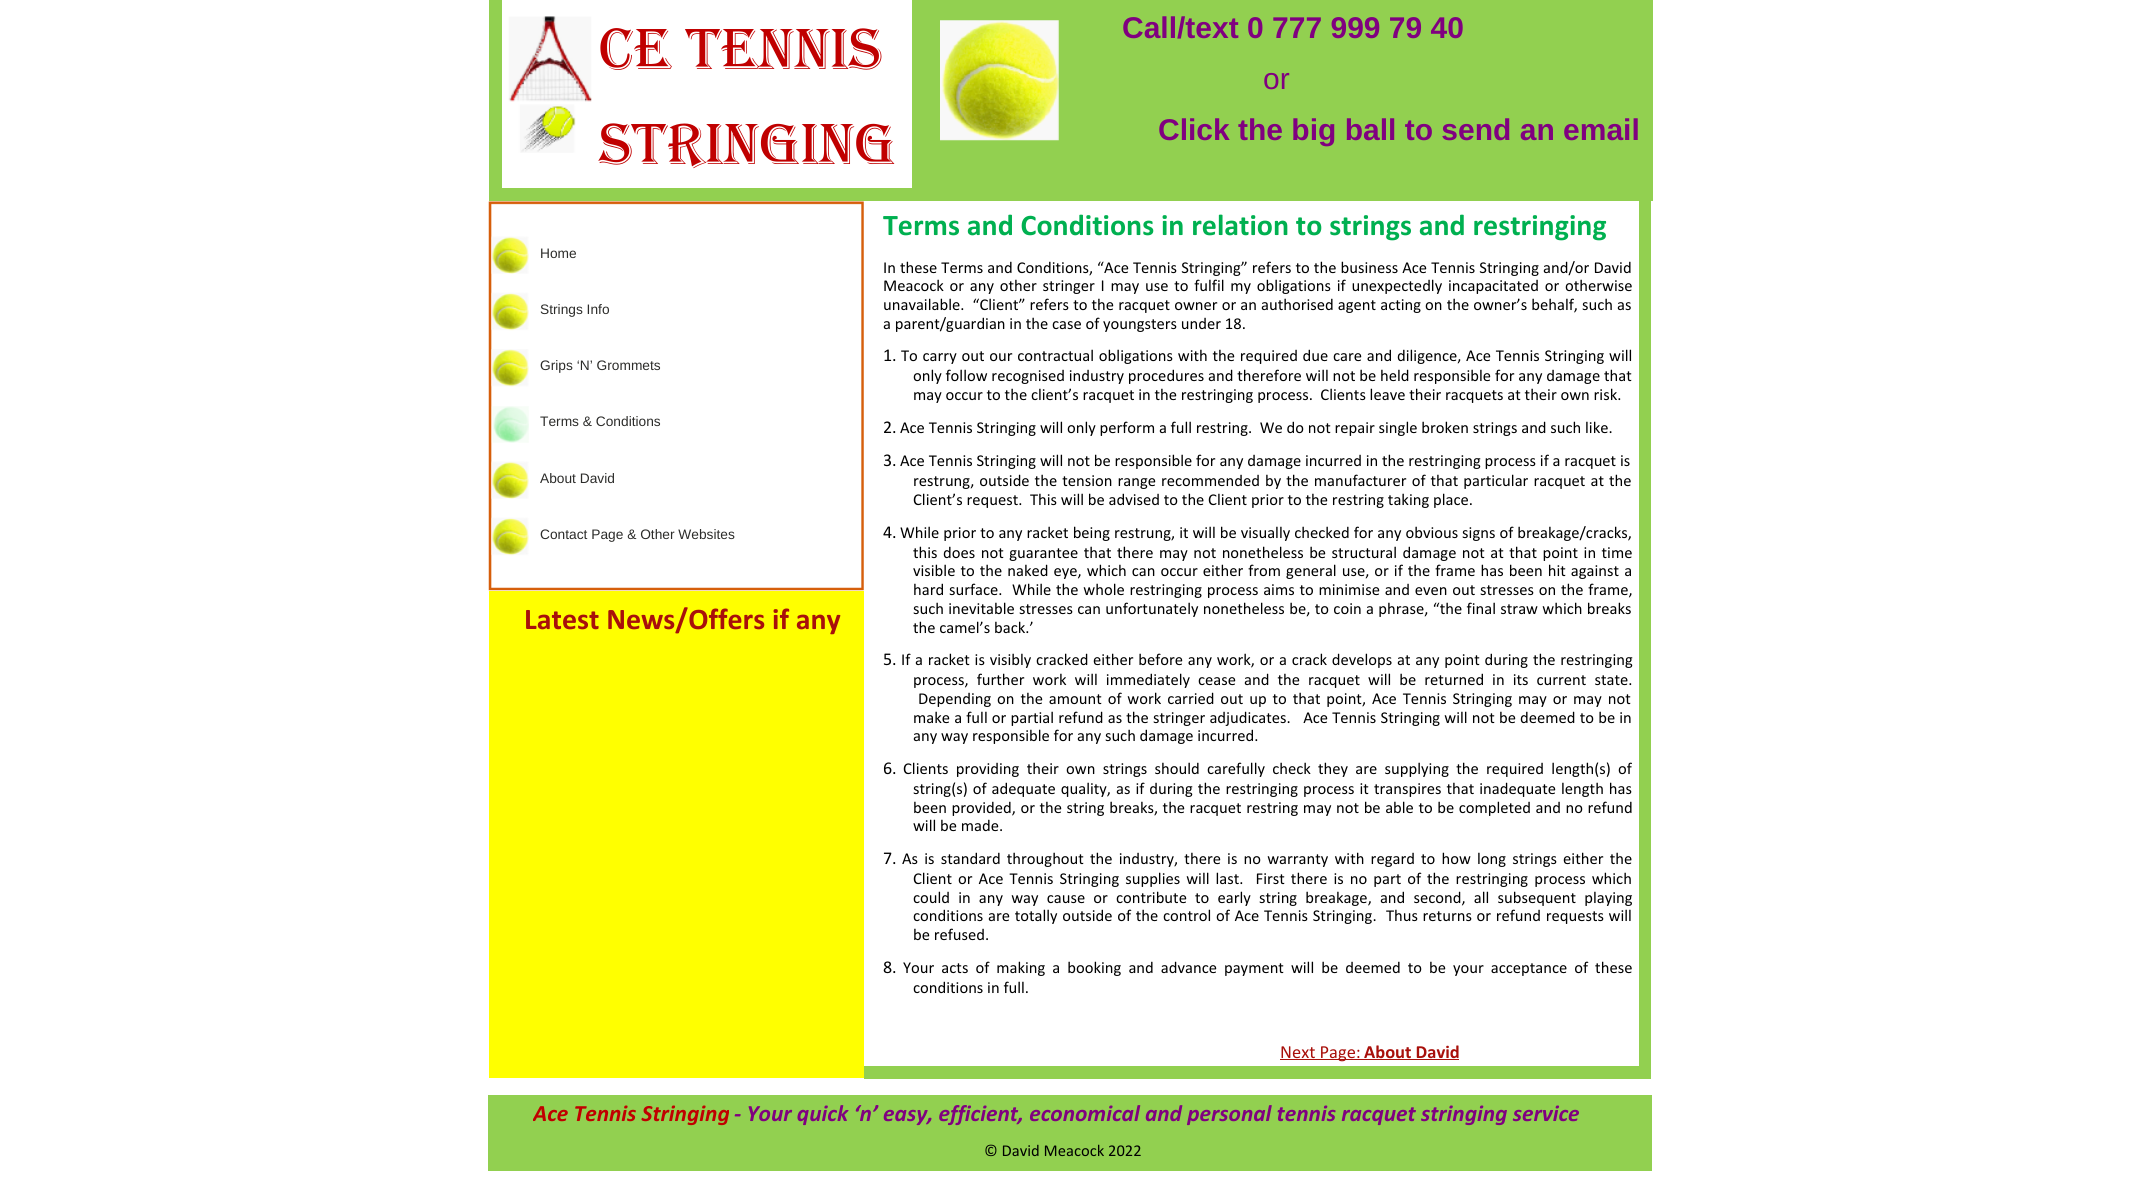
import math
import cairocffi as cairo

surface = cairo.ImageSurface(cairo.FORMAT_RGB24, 2140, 1181)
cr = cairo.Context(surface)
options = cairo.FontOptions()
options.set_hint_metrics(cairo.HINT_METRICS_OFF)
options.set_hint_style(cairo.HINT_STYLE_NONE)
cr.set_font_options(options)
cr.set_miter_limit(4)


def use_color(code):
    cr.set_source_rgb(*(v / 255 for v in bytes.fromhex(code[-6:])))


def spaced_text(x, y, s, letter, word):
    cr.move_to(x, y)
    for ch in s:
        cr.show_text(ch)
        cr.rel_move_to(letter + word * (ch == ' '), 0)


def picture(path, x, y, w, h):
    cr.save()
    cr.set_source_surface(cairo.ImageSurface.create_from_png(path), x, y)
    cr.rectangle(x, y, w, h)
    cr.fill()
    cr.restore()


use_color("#ffffff")
cr.paint()
cr.rectangle(495.5, -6.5, 423, 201)
use_color("#92d050")
cr.set_line_width(13)
cr.stroke()
picture("img1.png", 508, 16, 84, 137)
cr.select_font_face("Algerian")
cr.set_font_size(60)
use_color("#c00000")
cr.move_to(599, 69)
cr.show_text("ce Tennis")
cr.move_to(599, 164)
cr.show_text("Stringing")
use_color("#92d050")
cr.rectangle(925, 0, 728, 201)
cr.fill()
picture("img2.png", 940, 20, 119, 121)
cr.select_font_face("Liberation Sans", cairo.FONT_SLANT_NORMAL, cairo.FONT_WEIGHT_BOLD)
cr.set_font_size(30)
use_color("#800080")
cr.move_to(1122, 38)
cr.show_text("Call/text 0 777 999 79 40")
cr.select_font_face("Liberation Sans")
cr.move_to(1263, 89)
cr.show_text("or")
cr.select_font_face("Liberation Sans", cairo.FONT_SLANT_NORMAL, cairo.FONT_WEIGHT_BOLD)
cr.move_to(1158, 140)
cr.show_text("Click the big ball to send an email")
use_color("#92d050")
cr.rectangle(1639, 201, 12, 865)
cr.fill()
cr.rectangle(864, 1066, 787, 13)
cr.fill()
picture("img3.png", 488, 201, 376, 390)
picture("img4.png", 491, 236, 38, 38)
cr.select_font_face("Liberation Sans")
cr.set_font_size(13.75)
use_color("#2c2c2a")
cr.move_to(540, 258)
cr.show_text("Home")
picture("img5.png", 491, 292, 38, 39)
cr.move_to(540, 314)
cr.show_text("Strings Info")
picture("img6.png", 491, 349, 38, 38)
cr.move_to(540, 370)
cr.show_text("Grips ‘N’ Grommets")
picture("img7.png", 491, 406, 38, 37)
cr.move_to(540, 426)
cr.show_text("Terms & Conditions")
picture("img4.png", 491, 461, 38, 38)
cr.move_to(540, 483)
cr.show_text("About David")
picture("img8.png", 491, 517, 38, 39)
cr.move_to(540, 539)
cr.show_text("Contact Page & Other Websites")
cr.save()
cr.rectangle(883, 210, 750, 830)
cr.clip()
cr.select_font_face("Calibri", cairo.FONT_SLANT_NORMAL, cairo.FONT_WEIGHT_BOLD)
cr.set_font_size(30)
use_color("#00b050")
cr.move_to(883, 235)
cr.show_text("Terms and Conditions in relation to strings and restringing")
cr.restore()
cr.select_font_face("Calibri")
cr.set_font_size(16.6)
use_color("#000000")
spaced_text(883, 273, "In these Terms and Conditions, “Ace Tennis Stringing” refers to the business Ace Tennis Stringing and/or David", 0, 0.3)
spaced_text(883, 291, "Meacock or any other stringer I may use to fulfil my obligations if unexpectedly incapacitated or otherwise", 0, 2)
spaced_text(883, 310, "unavailable.  “Client” refers to the racquet owner or an authorised agent acting on the owner’s behalf, such as", 0, 0.3)
cr.move_to(883, 329)
cr.show_text("a parent/guardian in the case of youngsters under 18.")
cr.set_font_size(18)
cr.move_to(883, 361)
cr.show_text("1.")
cr.set_font_size(16.6)
spaced_text(901, 361, "To carry out our contractual obligations with the required due care and diligence, Ace Tennis Stringing will", 0, 1)
cr.move_to(913, 381)
cr.show_text("only follow recognised industry procedures and therefore will not be held responsible for any damage that")
cr.move_to(913, 400)
cr.show_text("may occur to the client’s racquet in the restringing process.  Clients leave their racquets at their own risk.")
cr.set_font_size(18)
cr.move_to(883, 433)
cr.show_text("2.")
cr.set_font_size(16.6)
cr.move_to(900, 433)
cr.show_text("Ace Tennis Stringing will only perform a full restring.  We do not repair single broken strings and such like.")
cr.set_font_size(18)
cr.move_to(883, 466)
cr.show_text("3.")
cr.set_font_size(16.6)
cr.move_to(900, 466)
cr.show_text("Ace Tennis Stringing will not be responsible for any damage incurred in the restringing process if a racquet is")
spaced_text(913, 486, "restrung, outside the tension range recommended by the manufacturer of that particular racquet at the", 0, 1.25)
cr.move_to(913, 505)
cr.show_text("Client’s request.  This will be advised to the Client prior to the restring taking place.")
cr.set_font_size(18)
cr.move_to(883, 538)
cr.show_text("4.")
cr.set_font_size(16.6)
spaced_text(900, 538, "While prior to any racket being restrung, it will be visually checked for any obvious signs of breakage/cracks,", 0, 0.2)
spaced_text(913, 558, "this does not guarantee that there may not nonetheless be structural damage not at that point in time", 0, 1.7)
spaced_text(913, 576, "visible to the naked eye, which can occur either from general use, or if the frame has been hit against a", 0, 1.25)
spaced_text(913, 595, "hard surface.  While the whole restringing process aims to minimise and even out stresses on the frame,", 0, 1)
spaced_text(913, 614, "such inevitable stresses can unfortunately nonetheless be, to coin a phrase, “the final straw which breaks", 0, 0.6)
cr.move_to(913, 633)
cr.show_text("the camel’s back.’")
cr.set_font_size(18)
cr.move_to(883, 665)
cr.show_text("5.")
cr.set_font_size(16.6)
spaced_text(901, 665, "If a racket is visibly cracked either before any work, or a crack develops at any point during the restringing", 0, 1)
spaced_text(913, 685, "process, further work will immediately cease and the racquet will be returned in its current state.", 0, 4.25)
spaced_text(918, 704, "Depending on the amount of work carried out up to that point, Ace Tennis Stringing may or may not", 0, 2.1)
spaced_text(913, 723, "make a full or partial refund as the stringer adjudicates.   Ace Tennis Stringing will not be deemed to be in", 0, 0.4)
cr.move_to(913, 741)
cr.show_text("any way responsible for any such damage incurred.")
cr.set_font_size(18)
cr.move_to(883, 774)
cr.show_text("6.")
cr.set_font_size(16.6)
spaced_text(903, 774, "Clients providing their own strings should carefully check they are supplying the required length(s) of", 0, 3.5)
spaced_text(913, 794, "string(s) of adequate quality, as if during the restringing process it transpires that inadequate length has", 0, 1.25)
spaced_text(913, 813, "been provided, or the string breaks, the racquet restring may not be able to be completed and no refund", 0, 0.75)
cr.move_to(913, 831)
cr.show_text("will be made.")
cr.set_font_size(18)
cr.move_to(883, 864)
cr.show_text("7.")
cr.set_font_size(16.6)
spaced_text(902, 864, "As is standard throughout the industry, there is no warranty with regard to how long strings either the", 0, 2.4)
spaced_text(913, 884, "Client or Ace Tennis Stringing supplies will last.  First there is no part of the restringing process which", 0, 2.25)
spaced_text(913, 903, "could in any way cause or contribute to early string breakage, and second, all subsequent playing", 0, 4.4)
spaced_text(913, 921, "conditions are totally outside of the control of Ace Tennis Stringing.  Thus returns or refund requests will", 0, 0.9)
cr.move_to(913, 940)
cr.show_text("be refused.")
cr.set_font_size(18)
cr.move_to(883, 973)
cr.show_text("8.")
cr.set_font_size(16.6)
spaced_text(903, 973, "Your acts of making a booking and advance payment will be deemed to be your acceptance of these", 0, 3.25)
cr.move_to(913, 993)
cr.show_text("conditions in full.")
use_color("#ffff00")
cr.rectangle(489, 591, 375, 487)
cr.fill()
cr.select_font_face("Calibri", cairo.FONT_SLANT_NORMAL, cairo.FONT_WEIGHT_BOLD)
cr.set_font_size(30)
use_color("#a8100b")
cr.move_to(524, 629)
cr.show_text("Latest News/Offers if any")
cr.rectangle(1280, 1059, 179, 1)
cr.fill()
cr.select_font_face("Calibri")
cr.set_font_size(18.5)
cr.move_to(1280, 1058)
cr.show_text("Next Page:")
cr.select_font_face("Calibri", cairo.FONT_SLANT_NORMAL, cairo.FONT_WEIGHT_BOLD)
cr.move_to(1364, 1058)
cr.show_text("About David")
use_color("#92d050")
cr.rectangle(488, 1095, 1164, 76)
cr.fill()
cr.save()
cr.rectangle(533, 1101, 1073, 32)
cr.clip()
cr.select_font_face("Calibri", cairo.FONT_SLANT_ITALIC, cairo.FONT_WEIGHT_BOLD)
cr.set_font_size(23.4)
use_color("#c00000")
cr.move_to(533, 1121)
cr.show_text("Ace Tennis Stringing")
cr.restore()
cr.select_font_face("Calibri", cairo.FONT_SLANT_ITALIC, cairo.FONT_WEIGHT_BOLD)
cr.set_font_size(23.4)
use_color("#800080")
cr.move_to(734, 1121)
cr.show_text("- Your quick ‘n’ easy, efficient, economical and personal tennis racquet stringing service")
cr.select_font_face("Calibri")
cr.set_font_size(16.6)
use_color("#000000")
cr.move_to(984, 1156)
cr.show_text("© David Meacock 2022")
surface.write_to_png("result.png")
